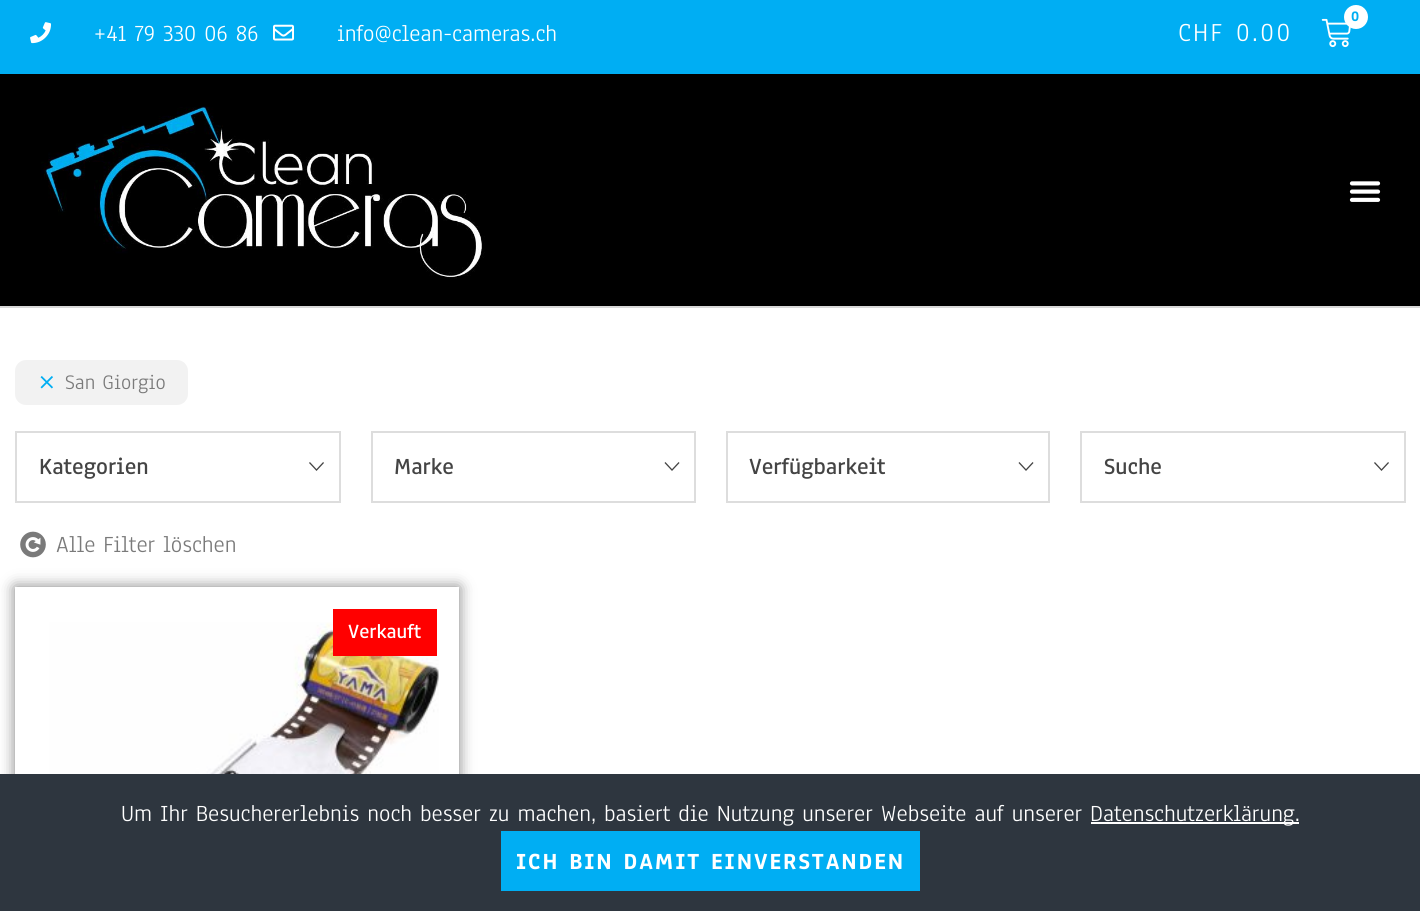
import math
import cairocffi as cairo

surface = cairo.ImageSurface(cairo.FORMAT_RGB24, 1420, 911)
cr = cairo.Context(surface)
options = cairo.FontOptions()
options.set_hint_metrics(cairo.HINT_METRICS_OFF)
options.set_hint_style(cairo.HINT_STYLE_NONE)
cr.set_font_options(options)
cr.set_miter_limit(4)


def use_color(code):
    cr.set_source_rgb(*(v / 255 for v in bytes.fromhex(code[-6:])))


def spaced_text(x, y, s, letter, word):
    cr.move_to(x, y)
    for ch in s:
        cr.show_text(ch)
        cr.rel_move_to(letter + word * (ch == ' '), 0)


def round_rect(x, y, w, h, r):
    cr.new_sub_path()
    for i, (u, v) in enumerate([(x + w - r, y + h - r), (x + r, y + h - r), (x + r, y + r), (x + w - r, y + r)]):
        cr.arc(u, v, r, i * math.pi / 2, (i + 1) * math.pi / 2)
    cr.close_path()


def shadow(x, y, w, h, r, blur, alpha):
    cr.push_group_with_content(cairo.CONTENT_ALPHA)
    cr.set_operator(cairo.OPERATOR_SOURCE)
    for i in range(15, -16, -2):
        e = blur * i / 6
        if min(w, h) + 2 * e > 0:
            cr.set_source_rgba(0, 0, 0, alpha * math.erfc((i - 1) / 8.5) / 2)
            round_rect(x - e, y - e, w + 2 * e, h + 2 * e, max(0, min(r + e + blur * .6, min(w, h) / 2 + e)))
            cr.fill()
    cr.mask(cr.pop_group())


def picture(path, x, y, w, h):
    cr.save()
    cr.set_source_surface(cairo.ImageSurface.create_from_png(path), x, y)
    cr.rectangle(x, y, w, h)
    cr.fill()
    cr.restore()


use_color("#ffffff")
cr.paint()
use_color("#00aef3")
cr.rectangle(0, 0, 1420, 74)
cr.fill()
picture("img1.png", 30, 22, 21, 22)
cr.select_font_face("Anaheim")
cr.set_font_size(24)
use_color("#ffffff")
cr.move_to(94, 41)
cr.show_text("+41 79 330 06 86")
picture("img2.png", 273, 24, 21, 17)
cr.move_to(337, 41)
cr.show_text("info@clean-cameras.ch")
picture("img3.png", 1321, 18, 30, 30)
cr.arc(1356, 17, 12, 0, 2 * math.pi)
cr.fill()
cr.select_font_face("Anaheim", cairo.FONT_SLANT_NORMAL, cairo.FONT_WEIGHT_BOLD)
cr.set_font_size(15)
use_color("#00aef3")
spaced_text(1351, 21, "0", 2.5, 0)
cr.select_font_face("Anaheim")
cr.set_font_size(27)
use_color("#ffffff")
spaced_text(1178, 41, "CHF 0.00", 2.5, 0)
use_color("#000000")
cr.rectangle(0, 74, 1420, 232)
cr.fill()
use_color("#d8d8d8")
cr.rectangle(0, 306, 1420, 2)
cr.fill()
picture("img4.png", 41, 106, 444, 173)
picture("img5.png", 1349, 181, 32, 21)
use_color("#f2f2f2")
round_rect(15, 360, 173, 45, 11)
cr.fill()
picture("img6.png", 40, 376, 13, 13)
cr.set_font_size(21.5)
use_color("#7a7a7a")
cr.move_to(65, 389)
cr.show_text("San Giorgio")
cr.rectangle(16, 432, 324, 70)
use_color("#dddddd")
cr.stroke()
cr.select_font_face("Anaheim SemiBold")
cr.set_font_size(24)
use_color("#444444")
cr.move_to(39, 474)
cr.show_text("Kategorien")
picture("img7.png", 309, 462, 15, 9)
cr.rectangle(372, 432, 323, 70)
use_color("#dddddd")
cr.stroke()
use_color("#444444")
cr.move_to(394, 474)
cr.show_text("Marke")
picture("img8.png", 664, 462, 16, 9)
cr.rectangle(727, 432, 322, 70)
use_color("#dddddd")
cr.stroke()
use_color("#444444")
cr.move_to(749, 474)
cr.show_text("Verfügbarkeit")
picture("img8.png", 1018, 462, 16, 9)
cr.rectangle(1081, 432, 324, 70)
use_color("#dddddd")
cr.stroke()
use_color("#444444")
cr.move_to(1104, 474)
cr.show_text("Suche")
picture("img7.png", 1374, 462, 15, 9)
picture("img9.png", 20, 531, 26, 27)
cr.select_font_face("Anaheim")
use_color("#7a7a7a")
cr.move_to(56, 552)
cr.show_text("Alle Filter löschen")
cr.save()
cr.set_fill_rule(cairo.FILL_RULE_EVEN_ODD)
cr.new_path()
cr.move_to(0, 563)
cr.line_to(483, 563)
cr.line_to(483, 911)
cr.line_to(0, 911)
cr.close_path()
cr.move_to(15, 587)
cr.line_to(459, 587)
cr.line_to(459, 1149)
cr.line_to(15, 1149)
cr.close_path()
cr.clip()
use_color("#000000")
shadow(15, 587, 444, 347, 0, 7.5, 0.5)
cr.restore()
picture("img10.png", 49, 622, 390, 152)
use_color("#ff0000")
cr.rectangle(333, 609, 104, 47)
cr.fill()
cr.select_font_face("Anaheim SemiBold")
cr.set_font_size(21)
use_color("#ffffff")
cr.move_to(348, 638)
cr.show_text("Verkauft")
use_color("#2e363f")
cr.rectangle(0, 774, 1420, 137)
cr.fill()
cr.select_font_face("Anaheim")
cr.set_font_size(24)
use_color("#ffffff")
cr.move_to(121, 821)
cr.show_text("Um Ihr Besuchererlebnis noch besser zu machen, basiert die Nutzung unserer Webseite auf unserer")
cr.rectangle(1091, 822, 208, 2)
cr.fill()
cr.move_to(1090, 821)
cr.show_text("Datenschutzerklärung.")
use_color("#00aef3")
cr.rectangle(501, 831, 419, 60)
cr.fill()
cr.select_font_face("Anaheim", cairo.FONT_SLANT_NORMAL, cairo.FONT_WEIGHT_BOLD)
use_color("#ffffff")
spaced_text(516, 869, "ICH BIN DAMIT EINVERSTANDEN", 1.95, 0)
surface.write_to_png("result.png")
